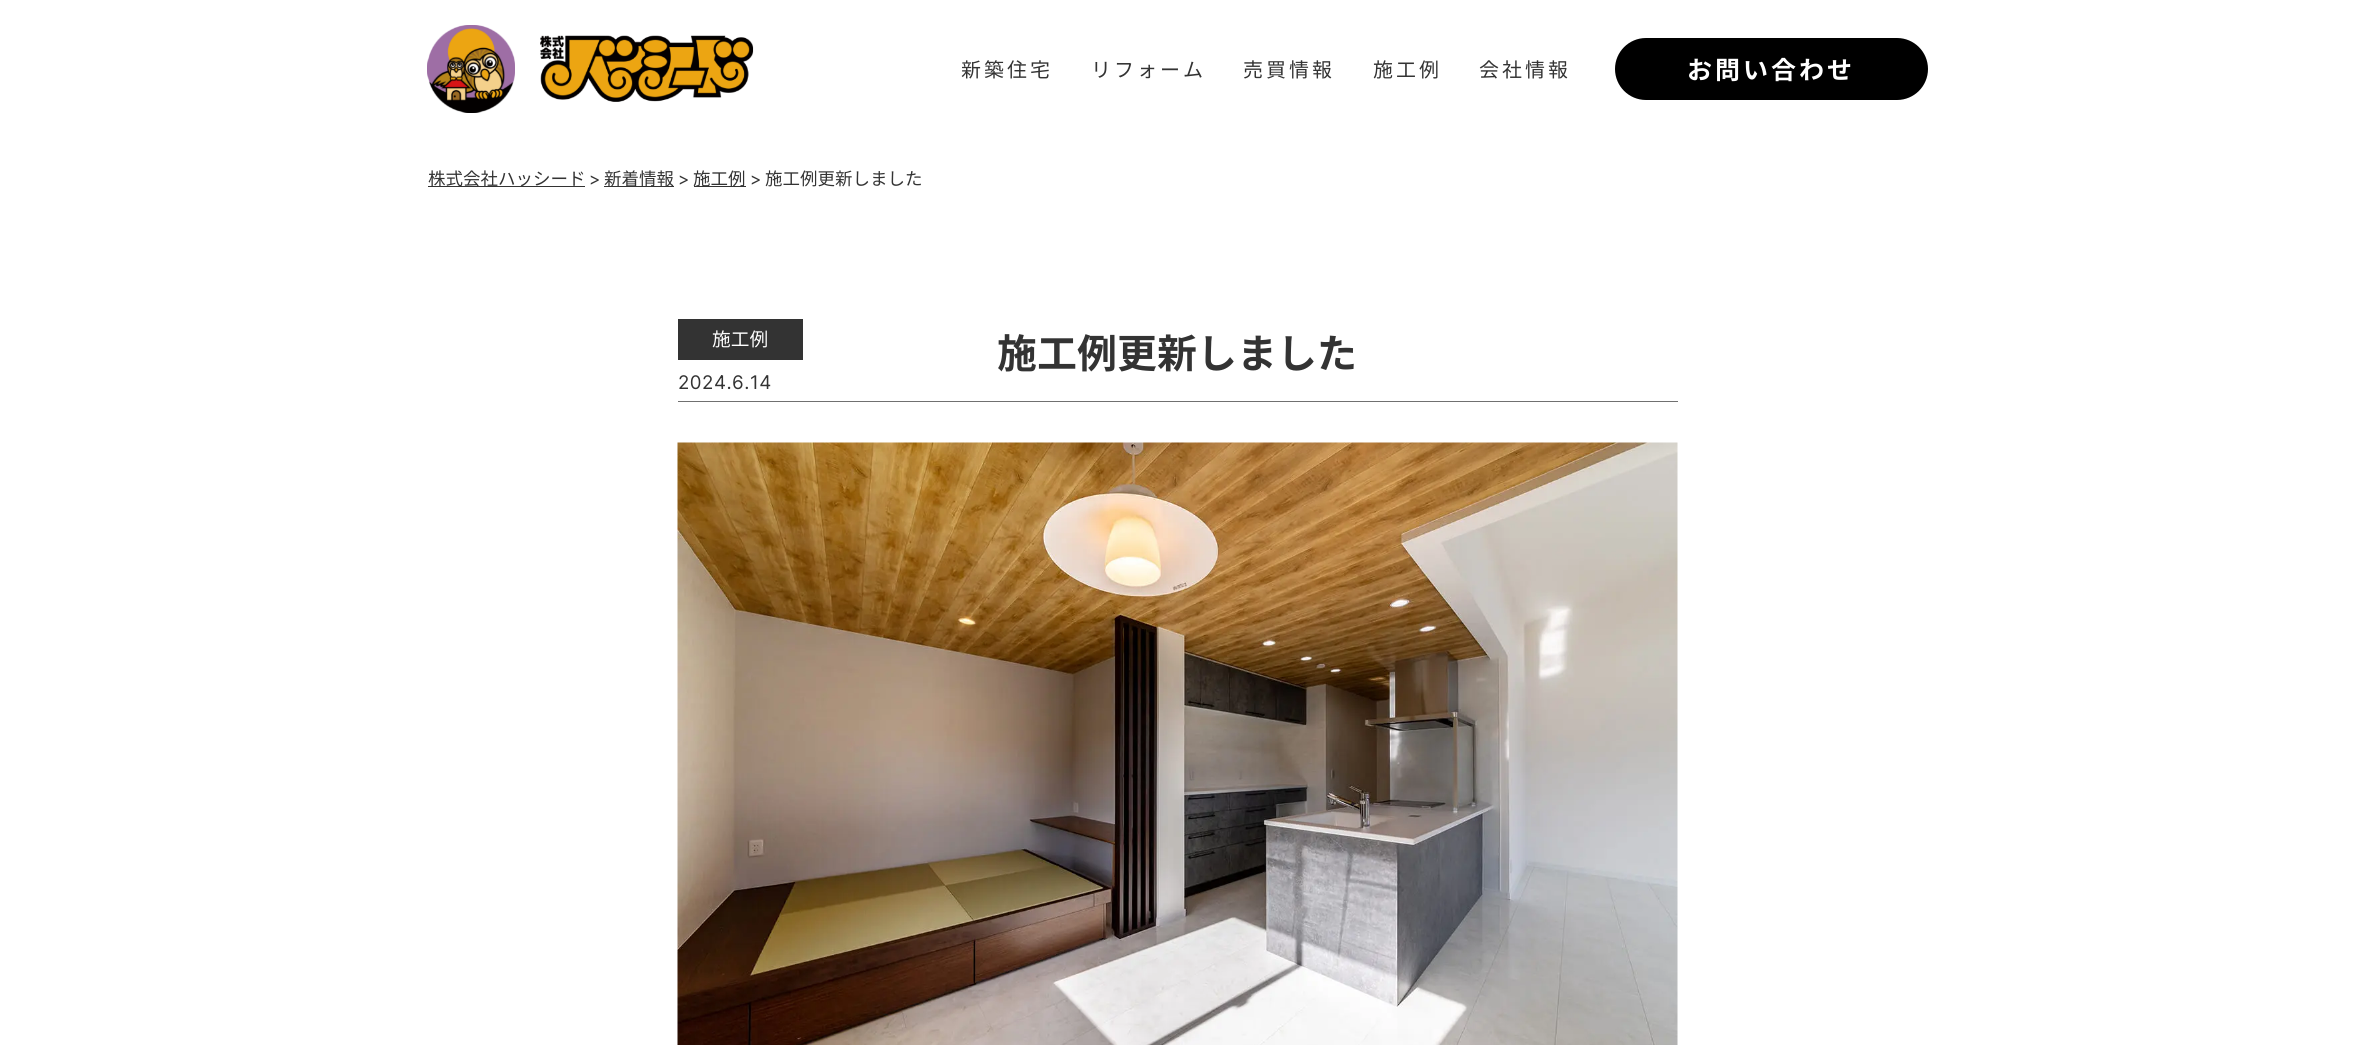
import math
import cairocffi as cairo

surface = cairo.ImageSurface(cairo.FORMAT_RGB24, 2355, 1045)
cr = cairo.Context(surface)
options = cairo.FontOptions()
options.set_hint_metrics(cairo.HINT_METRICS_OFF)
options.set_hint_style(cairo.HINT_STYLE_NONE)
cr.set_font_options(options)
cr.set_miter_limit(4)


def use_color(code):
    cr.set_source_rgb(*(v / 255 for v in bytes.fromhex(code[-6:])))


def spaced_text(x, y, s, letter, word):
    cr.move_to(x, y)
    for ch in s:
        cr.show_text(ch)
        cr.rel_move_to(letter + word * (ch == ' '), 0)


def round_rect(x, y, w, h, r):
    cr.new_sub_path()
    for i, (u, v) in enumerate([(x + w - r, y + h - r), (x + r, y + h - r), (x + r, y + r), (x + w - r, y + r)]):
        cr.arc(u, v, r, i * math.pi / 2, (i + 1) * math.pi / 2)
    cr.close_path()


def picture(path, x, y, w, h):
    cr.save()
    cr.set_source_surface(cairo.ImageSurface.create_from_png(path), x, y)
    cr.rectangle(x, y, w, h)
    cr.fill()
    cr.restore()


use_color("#ffffff")
cr.paint()
cr.select_font_face("Noto Sans JP")
cr.set_font_size(20)
use_color("#333333")
spaced_text(961, 77, "新築住宅", 3, 0)
spaced_text(1091, 77, "リフォーム", 3, 0)
spaced_text(1243, 77, "売買情報", 3, 0)
spaced_text(1373, 77, "施工例", 3, 0)
spaced_text(1479, 77, "会社情報", 3, 0)
picture("img1.png", 427, 25, 327, 88)
use_color("#000000")
round_rect(1615, 38, 313, 62, 31)
cr.fill()
cr.select_font_face("Noto Sans JP", cairo.FONT_SLANT_NORMAL, cairo.FONT_WEIGHT_BOLD)
cr.set_font_size(25)
use_color("#ffffff")
spaced_text(1687, 79, "お問い合わせ", 3, 0)
use_color("#333333")
cr.rectangle(428, 186, 157, 1)
cr.fill()
cr.select_font_face("Noto Sans JP")
cr.set_font_size(17.5)
cr.move_to(428, 185)
cr.show_text("株式会社ハッシード")
cr.select_font_face("Inter")
cr.move_to(589, 185)
cr.show_text(">")
cr.rectangle(604, 186, 70, 1)
cr.fill()
cr.select_font_face("Noto Sans JP")
cr.move_to(604, 185)
cr.show_text("新着情報")
cr.select_font_face("Inter")
cr.move_to(678, 185)
cr.show_text(">")
cr.rectangle(694, 186, 52, 1)
cr.fill()
cr.select_font_face("Noto Sans JP")
cr.move_to(693, 185)
cr.show_text("施工例")
cr.select_font_face("Inter")
cr.move_to(750, 185)
cr.show_text(">")
cr.select_font_face("Noto Sans JP")
cr.move_to(765, 185)
cr.show_text("施工例更新しました")
use_color("#707070")
cr.rectangle(678, 401, 1000, 1)
cr.fill()
use_color("#333333")
cr.rectangle(678, 319, 125, 41)
cr.fill()
cr.set_font_size(18.75)
use_color("#ffffff")
cr.move_to(712, 346)
cr.show_text("施工例")
cr.select_font_face("Inter")
use_color("#333333")
spaced_text(678, 389, "2024.6.14", 0.5, 0)
cr.select_font_face("Noto Sans JP", cairo.FONT_SLANT_NORMAL, cairo.FONT_WEIGHT_BOLD)
cr.set_font_size(40)
cr.move_to(997, 368)
cr.show_text("施工例更新しました")
picture("img2.png", 677, 442, 1001, 603)
surface.write_to_png("result.png")
